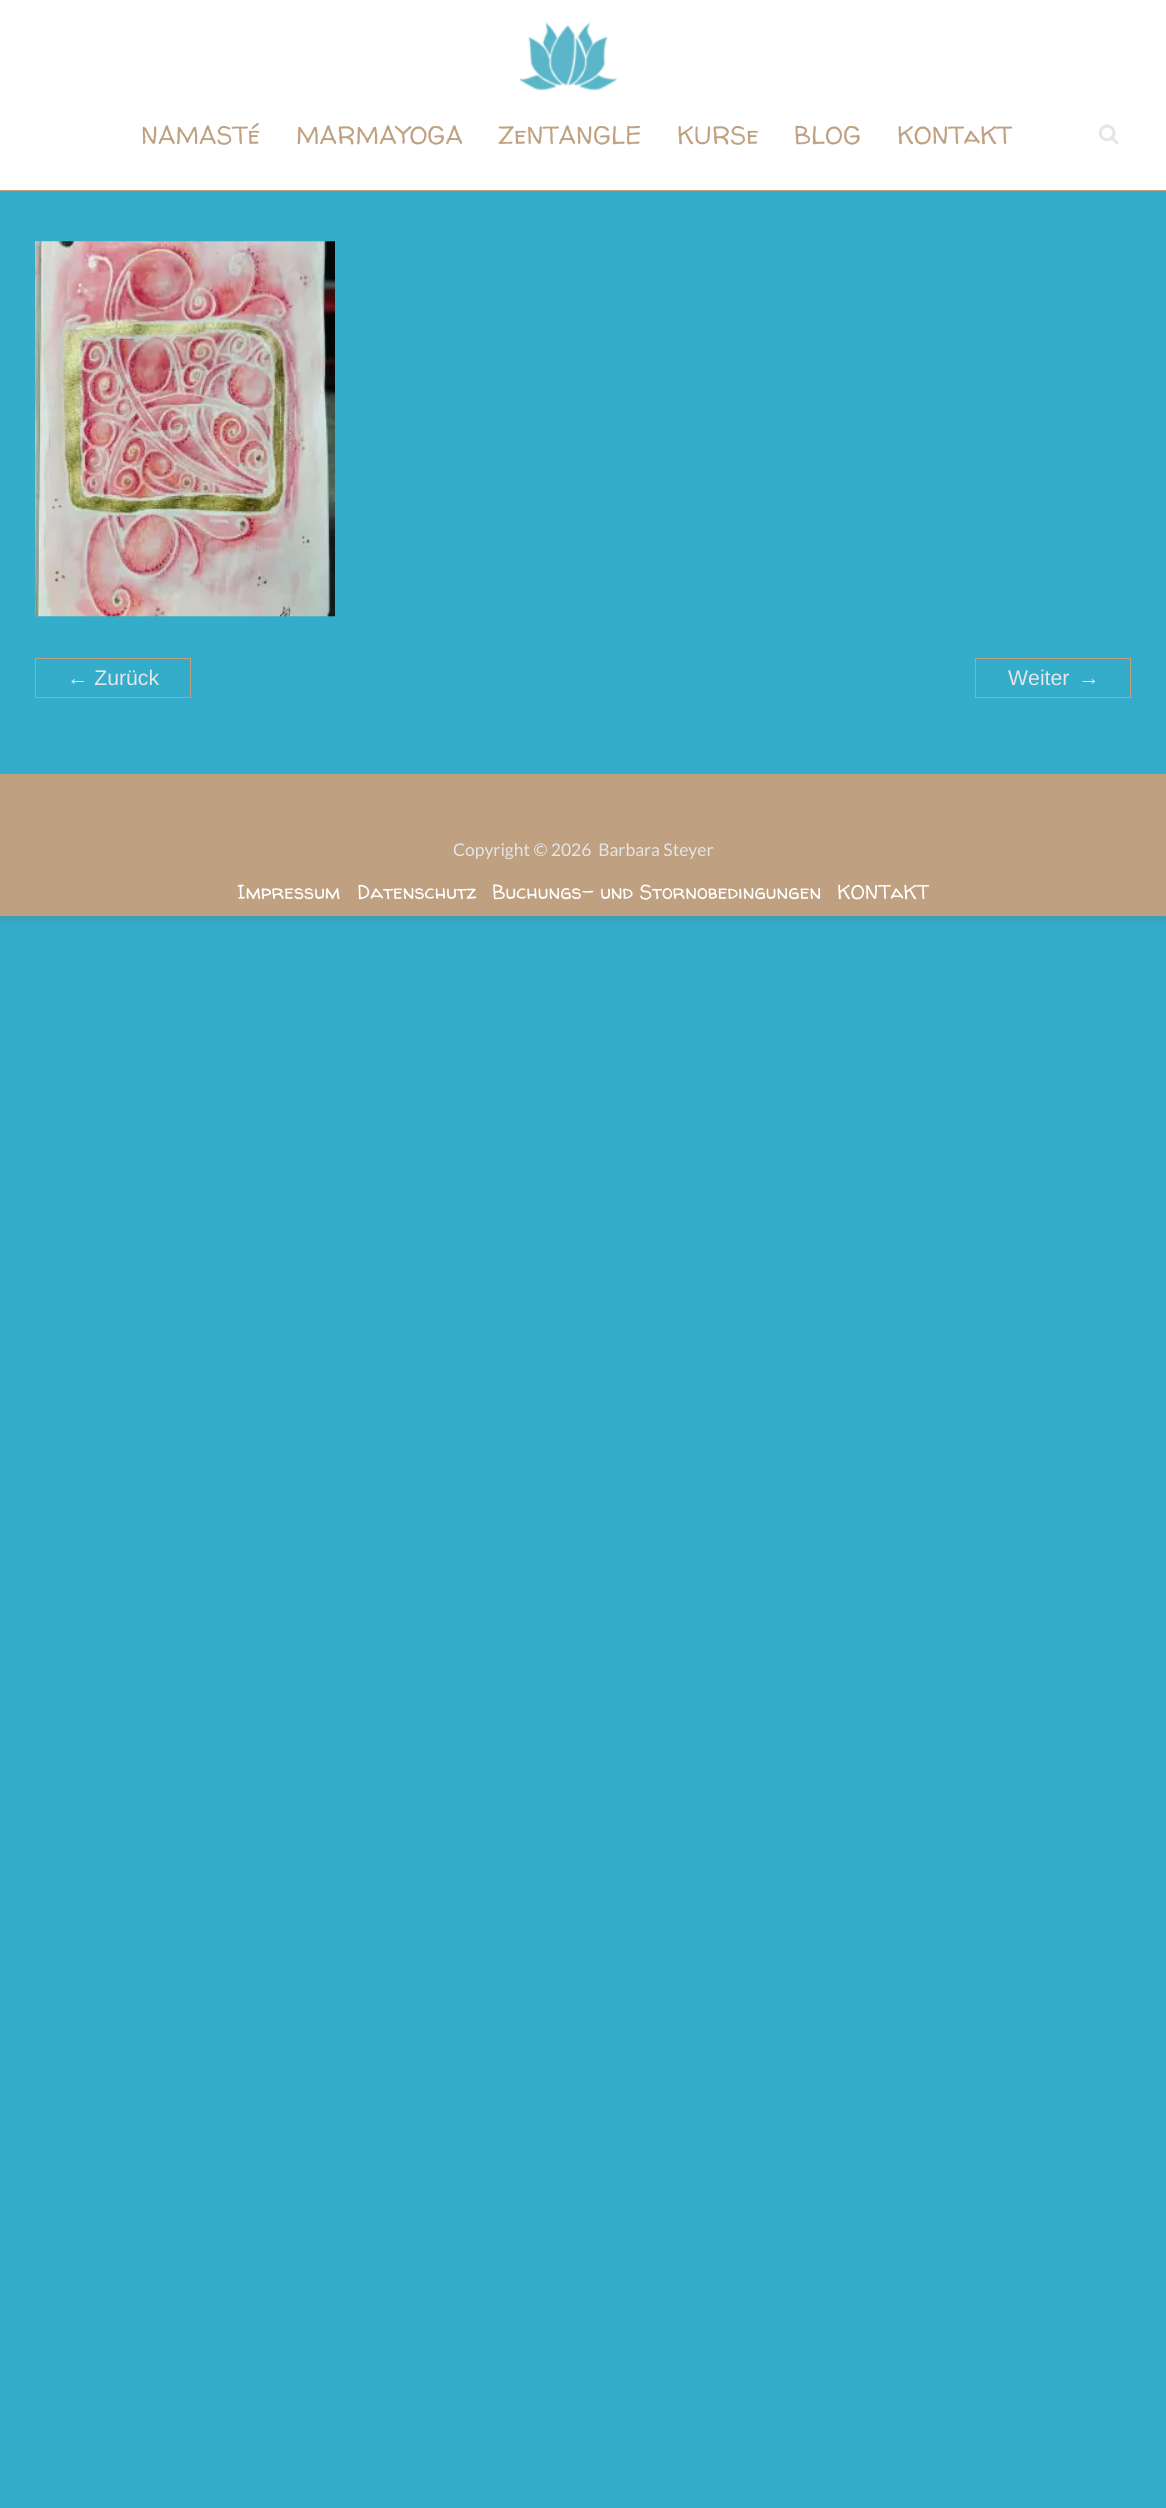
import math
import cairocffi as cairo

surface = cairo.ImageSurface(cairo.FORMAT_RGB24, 1166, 2508)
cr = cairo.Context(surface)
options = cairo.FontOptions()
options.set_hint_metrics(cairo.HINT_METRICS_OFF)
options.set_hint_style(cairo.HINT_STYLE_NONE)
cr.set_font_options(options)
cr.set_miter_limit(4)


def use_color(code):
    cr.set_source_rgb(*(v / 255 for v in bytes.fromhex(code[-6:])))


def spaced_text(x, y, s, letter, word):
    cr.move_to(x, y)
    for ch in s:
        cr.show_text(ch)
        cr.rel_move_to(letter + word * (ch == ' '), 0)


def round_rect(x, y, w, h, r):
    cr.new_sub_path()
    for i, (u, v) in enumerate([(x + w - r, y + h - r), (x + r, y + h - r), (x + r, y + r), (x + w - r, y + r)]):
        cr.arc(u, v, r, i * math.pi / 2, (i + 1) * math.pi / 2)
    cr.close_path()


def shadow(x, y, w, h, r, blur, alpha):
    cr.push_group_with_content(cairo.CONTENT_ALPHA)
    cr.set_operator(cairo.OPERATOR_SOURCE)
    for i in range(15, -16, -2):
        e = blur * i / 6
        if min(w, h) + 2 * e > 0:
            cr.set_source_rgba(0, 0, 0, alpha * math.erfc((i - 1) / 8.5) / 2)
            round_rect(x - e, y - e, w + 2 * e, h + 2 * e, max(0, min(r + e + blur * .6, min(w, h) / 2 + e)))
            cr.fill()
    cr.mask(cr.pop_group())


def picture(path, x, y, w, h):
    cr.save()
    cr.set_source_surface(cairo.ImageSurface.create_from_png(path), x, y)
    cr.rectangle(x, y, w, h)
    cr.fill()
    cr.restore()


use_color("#34adca")
cr.paint()
use_color("#646464")
shadow(0, 3, 1166, 916, 0, 4, 0.3)
use_color("#ffffff")
cr.rectangle(0, 0, 1166, 190)
cr.fill()
use_color("#bfa080")
cr.rectangle(0, 190, 1166, 1)
cr.fill()
picture("img1.png", 520, 22, 98, 69)
cr.select_font_face("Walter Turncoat")
cr.set_font_size(25)
cr.move_to(141, 144)
cr.show_text("NAMASTé")
cr.move_to(296, 144)
cr.show_text("MARMAYOGA")
cr.move_to(498, 144)
cr.show_text("ZeNTANGLE")
cr.move_to(677, 144)
cr.show_text("KURSe")
cr.move_to(794, 144)
cr.show_text("BLOG")
cr.move_to(897, 144)
cr.show_text("KONTaKT")
picture("img2.png", 1098, 124, 21, 21)
use_color("#34adca")
cr.rectangle(0, 191, 1166, 583)
cr.fill()
picture("img3.png", 35, 241, 300, 376)
cr.rectangle(35.5, 658.5, 155, 39)
use_color("#bfa080")
cr.set_line_width(1)
cr.stroke()
cr.select_font_face("Liberation Sans")
cr.set_font_size(21.25)
use_color("#e5e5e5")
cr.move_to(67, 685)
cr.show_text("← Zurück")
cr.rectangle(975.5, 658.5, 155, 39)
use_color("#bfa080")
cr.stroke()
use_color("#e5e5e5")
spaced_text(1008, 685, "Weiter →", 0, 3)
use_color("#bfa080")
cr.rectangle(0, 774, 1166, 142)
cr.fill()
cr.select_font_face("Lato")
cr.set_font_size(17.5)
use_color("#e5e5e5")
cr.move_to(453, 856)
cr.show_text("Copyright © 2026  Barbara Steyer")
cr.select_font_face("Walter Turncoat")
cr.set_font_size(20)
use_color("#ffffff")
cr.move_to(237, 899)
cr.show_text("Impressum")
cr.move_to(357, 899)
cr.show_text("Datenschutz")
cr.move_to(492, 899)
cr.show_text("Buchungs- und Stornobedingungen")
cr.move_to(837, 899)
cr.show_text("KONTaKT")
surface.write_to_png("result.png")
